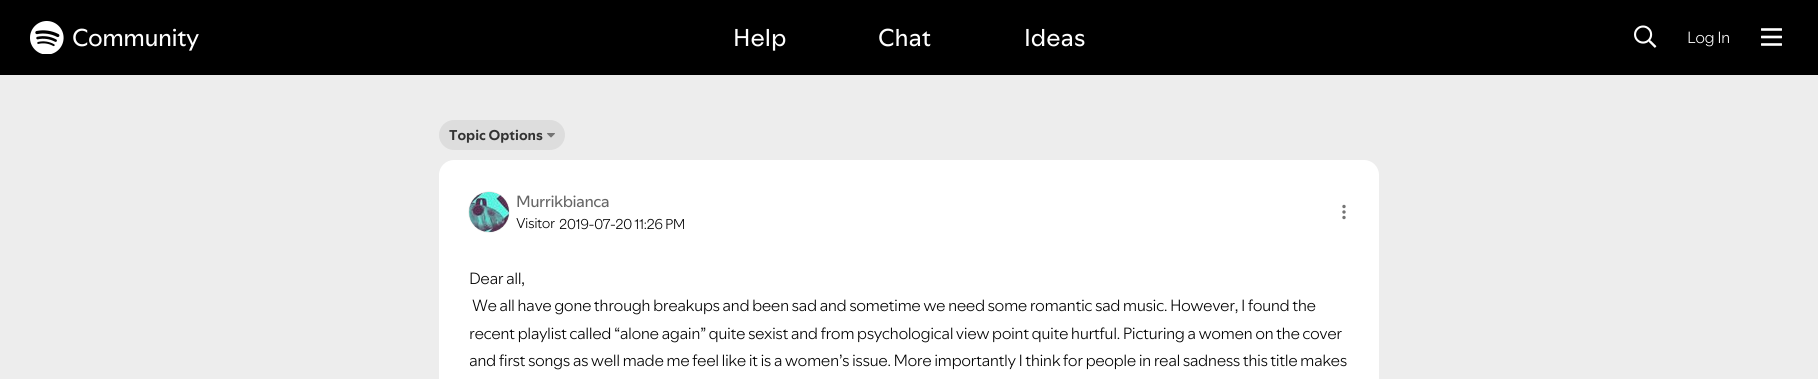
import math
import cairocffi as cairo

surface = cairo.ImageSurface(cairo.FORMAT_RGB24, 1818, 379)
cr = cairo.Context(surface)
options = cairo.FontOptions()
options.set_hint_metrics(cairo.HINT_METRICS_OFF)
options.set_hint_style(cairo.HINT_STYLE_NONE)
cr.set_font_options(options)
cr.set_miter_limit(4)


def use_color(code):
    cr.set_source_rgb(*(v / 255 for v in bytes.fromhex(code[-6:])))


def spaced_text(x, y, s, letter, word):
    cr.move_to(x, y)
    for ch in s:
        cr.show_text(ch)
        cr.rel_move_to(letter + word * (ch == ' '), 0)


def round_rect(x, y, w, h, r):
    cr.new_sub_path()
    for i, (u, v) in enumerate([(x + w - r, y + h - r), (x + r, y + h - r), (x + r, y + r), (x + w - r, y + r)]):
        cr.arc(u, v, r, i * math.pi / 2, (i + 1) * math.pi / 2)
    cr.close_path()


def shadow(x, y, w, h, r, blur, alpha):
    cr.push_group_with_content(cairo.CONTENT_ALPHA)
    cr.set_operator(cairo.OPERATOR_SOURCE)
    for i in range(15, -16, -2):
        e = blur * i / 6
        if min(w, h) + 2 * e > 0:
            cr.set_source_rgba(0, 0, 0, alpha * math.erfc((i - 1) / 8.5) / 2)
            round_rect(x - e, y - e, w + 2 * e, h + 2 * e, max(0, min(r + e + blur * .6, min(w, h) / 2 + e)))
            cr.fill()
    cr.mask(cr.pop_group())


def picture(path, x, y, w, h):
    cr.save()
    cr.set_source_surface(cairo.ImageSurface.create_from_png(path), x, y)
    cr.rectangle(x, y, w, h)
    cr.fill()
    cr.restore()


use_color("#ededed")
cr.paint()
use_color("#000000")
cr.rectangle(0, 0, 1818, 75)
cr.fill()
picture("img1.png", 30, 21, 34, 33)
cr.select_font_face("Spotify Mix")
cr.set_font_size(24)
use_color("#ffffff")
spaced_text(72, 46, "Community", -0.5, 0)
cr.move_to(733, 46)
cr.show_text("Help")
cr.move_to(878, 46)
cr.show_text("Chat")
cr.move_to(1024, 46)
cr.show_text("Ideas")
picture("img2.png", 1634, 25, 23, 23)
cr.select_font_face("Spotify Mix Light")
cr.set_font_size(16)
spaced_text(1687, 43, "Log In", -0.5, 0)
picture("img3.png", 1761, 28, 21, 18)
use_color("#dddddd")
round_rect(439, 120, 126, 30, 15)
cr.fill()
cr.select_font_face("Spotify Mix", cairo.FONT_SLANT_NORMAL, cairo.FONT_WEIGHT_BOLD)
cr.set_font_size(14)
use_color("#333333")
cr.move_to(449, 140)
cr.show_text("Topic Options")
picture("img4.png", 547, 133, 8, 5)
use_color("#ffffff")
round_rect(439, 160, 940, 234, 15)
cr.fill()
use_color("#c4c4c4")
shadow(469, 192, 40, 40, 20, 0.5, 1)
picture("img5.png", 469, 192, 40, 40)
cr.select_font_face("Spotify Mix")
cr.set_font_size(16)
use_color("#666666")
spaced_text(516, 207, "Murrikbianca", -0.5, 0)
cr.select_font_face("Spotify Mix Light")
cr.set_font_size(14)
use_color("#000000")
spaced_text(516, 228, "Visitor", -0.5, 0)
spaced_text(559, 229, "2019-07-20 11:26 PM", -0.5, 0)
use_color("#747474")
cr.new_path()
cr.arc(1344, 206.5, 1.7, 0, 2 * math.pi)
cr.fill()
cr.arc(1344, 212, 1.7, 0, 2 * math.pi)
cr.fill()
cr.arc(1344, 217.5, 1.7, 0, 2 * math.pi)
cr.fill()
cr.set_font_size(16)
use_color("#000000")
spaced_text(469, 284, "Dear all,", -0.5, 0)
spaced_text(472, 311, "We all have gone through breakups and been sad and sometime we need some romantic sad music. However, I found the", -0.5, 0)
spaced_text(469, 339, "recent playlist called “alone again” quite sexist and from psychological view point quite hurtful. Picturing a women on the cover", -0.5, 0)
spaced_text(469, 366, "and first songs as well made me feel like it is a women’s issue. More importantly I think for people in real sadness this title makes", -0.5, 0)
surface.write_to_png("result.png")
